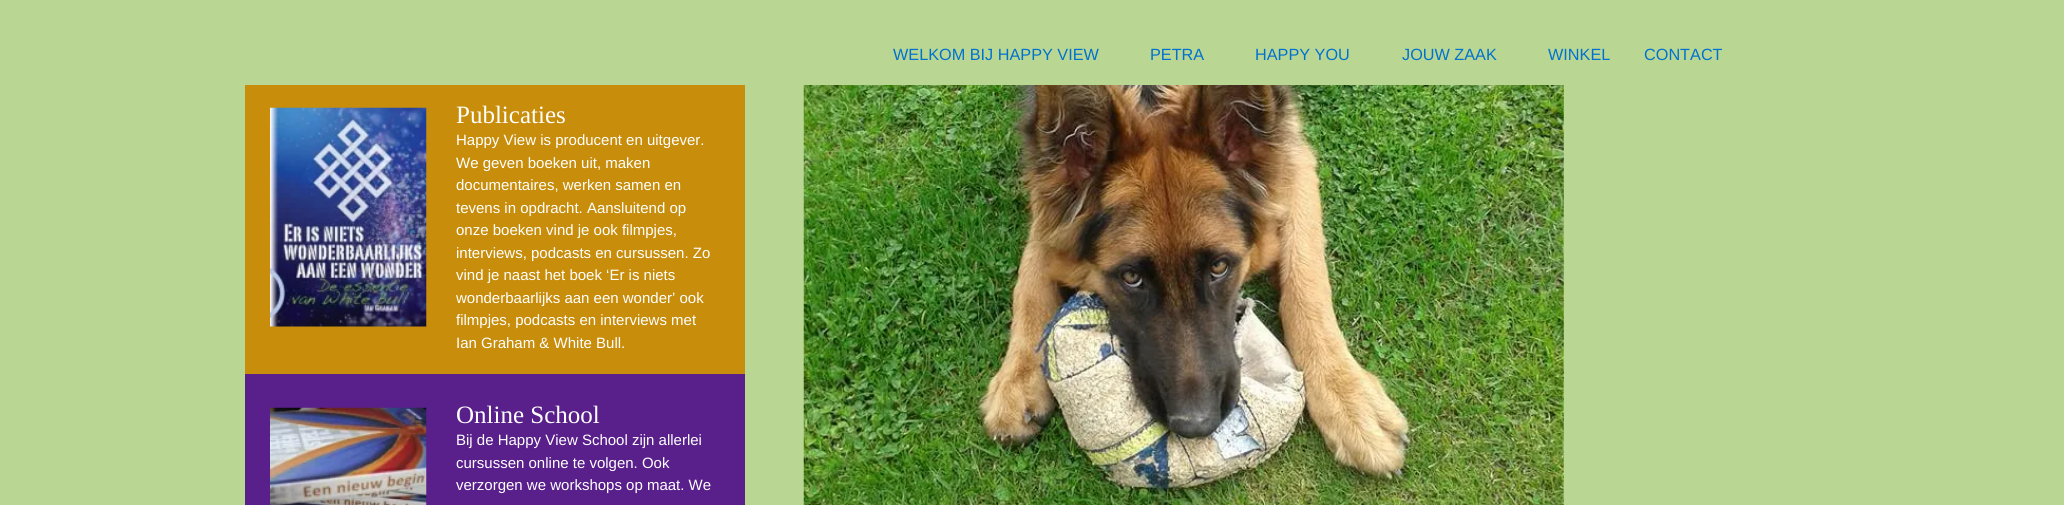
import math
import cairocffi as cairo

surface = cairo.ImageSurface(cairo.FORMAT_RGB24, 2064, 505)
cr = cairo.Context(surface)
options = cairo.FontOptions()
options.set_hint_metrics(cairo.HINT_METRICS_OFF)
options.set_hint_style(cairo.HINT_STYLE_NONE)
cr.set_font_options(options)
cr.set_miter_limit(4)


def use_color(code):
    cr.set_source_rgb(*(v / 255 for v in bytes.fromhex(code[-6:])))


def picture(path, x, y, w, h):
    cr.save()
    cr.set_source_surface(cairo.ImageSurface.create_from_png(path), x, y)
    cr.rectangle(x, y, w, h)
    cr.fill()
    cr.restore()


use_color("#b9d793")
cr.paint()
cr.select_font_face("Liberation Sans")
cr.set_font_size(16.25)
use_color("#0071ce")
cr.move_to(893, 60)
cr.show_text("WELKOM BIJ HAPPY VIEW")
cr.move_to(1150, 60)
cr.show_text("PETRA")
cr.move_to(1255, 60)
cr.show_text("HAPPY YOU")
cr.move_to(1402, 60)
cr.show_text("JOUW ZAAK")
cr.move_to(1548, 60)
cr.show_text("WINKEL")
cr.move_to(1644, 60)
cr.show_text("CONTACT")
use_color("#c78d0b")
cr.rectangle(245, 85, 500, 289)
cr.fill()
picture("img1.png", 270, 107, 157, 220)
cr.select_font_face("Liberation Serif")
cr.set_font_size(25)
use_color("#ffffff")
cr.move_to(456, 123)
cr.show_text("Publicaties")
cr.select_font_face("Liberation Sans")
cr.set_font_size(15)
cr.move_to(456, 145)
cr.show_text("Happy View is producent en uitgever.")
cr.move_to(456, 168)
cr.show_text("We geven boeken uit, maken")
cr.move_to(456, 190)
cr.show_text("documentaires, werken samen en")
cr.move_to(456, 213)
cr.show_text("tevens in opdracht. Aansluitend op")
cr.move_to(456, 235)
cr.show_text("onze boeken vind je ook filmpjes,")
cr.move_to(456, 258)
cr.show_text("interviews, podcasts en cursussen. Zo")
cr.move_to(456, 280)
cr.show_text("vind je naast het boek ‘Er is niets")
cr.move_to(456, 303)
cr.show_text("wonderbaarlijks aan een wonder’ ook")
cr.move_to(456, 325)
cr.show_text("filmpjes, podcasts en interviews met")
cr.move_to(456, 348)
cr.show_text("Ian Graham & White Bull.")
use_color("#591f8b")
cr.rectangle(245, 374, 500, 131)
cr.fill()
picture("img2.png", 270, 407, 157, 98)
cr.select_font_face("Liberation Serif")
cr.set_font_size(25)
use_color("#ffffff")
cr.move_to(456, 423)
cr.show_text("Online School")
cr.select_font_face("Liberation Sans")
cr.set_font_size(15)
cr.move_to(456, 445)
cr.show_text("Bij de Happy View School zijn allerlei")
cr.move_to(456, 468)
cr.show_text("cursussen online te volgen. Ook")
cr.move_to(456, 490)
cr.show_text("verzorgen we workshops op maat. We")
picture("img3.png", 803, 85, 761, 420)
surface.write_to_png("result.png")
